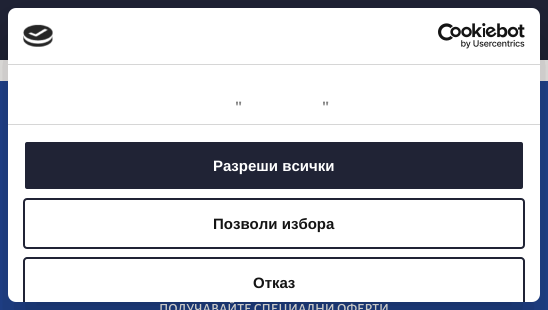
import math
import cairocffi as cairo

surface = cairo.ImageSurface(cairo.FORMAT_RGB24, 548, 310)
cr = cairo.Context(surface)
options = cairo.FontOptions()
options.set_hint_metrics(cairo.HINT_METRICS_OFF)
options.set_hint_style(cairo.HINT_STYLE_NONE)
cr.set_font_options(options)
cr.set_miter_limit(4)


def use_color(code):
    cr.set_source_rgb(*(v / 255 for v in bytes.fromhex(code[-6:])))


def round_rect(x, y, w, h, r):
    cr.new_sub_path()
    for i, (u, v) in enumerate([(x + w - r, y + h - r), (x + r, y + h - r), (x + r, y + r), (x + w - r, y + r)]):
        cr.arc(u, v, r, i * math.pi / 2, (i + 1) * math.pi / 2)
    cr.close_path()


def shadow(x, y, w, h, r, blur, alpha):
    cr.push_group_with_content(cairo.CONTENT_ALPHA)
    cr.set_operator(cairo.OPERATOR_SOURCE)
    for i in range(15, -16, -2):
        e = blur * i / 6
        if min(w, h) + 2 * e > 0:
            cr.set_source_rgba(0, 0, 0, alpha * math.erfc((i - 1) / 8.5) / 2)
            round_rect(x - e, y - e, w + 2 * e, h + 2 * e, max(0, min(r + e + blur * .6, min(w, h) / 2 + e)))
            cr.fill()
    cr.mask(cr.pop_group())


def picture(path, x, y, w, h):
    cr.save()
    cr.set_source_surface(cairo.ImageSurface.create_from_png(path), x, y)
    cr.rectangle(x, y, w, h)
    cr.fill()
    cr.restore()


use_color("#f2f0ee")
cr.paint()
use_color("#202335")
cr.rectangle(0, 0, 548, 60)
cr.fill()
use_color("#224592")
cr.rectangle(0, 81, 548, 229)
cr.fill()
use_color("#000000")
shadow(8, 40, 532, 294, 8, 34, 0.3)
cr.select_font_face("Alegreya Sans Medium")
cr.set_font_size(14)
use_color("#cbcac7")
cr.move_to(159, 313)
cr.show_text("ПОЛУЧАВАЙТЕ СПЕЦИАЛНИ ОФЕРТИ")
use_color("#ffffff")
round_rect(8, 8, 532, 294, 8)
cr.fill()
use_color("#d6d6d6")
cr.rectangle(8, 64, 532, 1)
cr.fill()
picture("img1.png", 23, 24, 30, 23)
picture("img2.png", 438, 23, 87, 26)
cr.rectangle(8, 124, 532, 1)
cr.fill()
cr.select_font_face("Liberation Sans", cairo.FONT_SLANT_NORMAL, cairo.FONT_WEIGHT_BOLD)
cr.set_font_size(15)
use_color("#141414")
cr.move_to(235, 112)
cr.show_text("\"")
cr.move_to(322, 112)
cr.show_text("\"")
gradient = cairo.LinearGradient(268, 124, 268, 94)
gradient.add_color_stop_rgba(0, 1, 1, 1, 1)
gradient.add_color_stop_rgba(0.5, 1, 1, 1, 0.8)
gradient.add_color_stop_rgba(1, 1, 1, 1, 0)
cr.set_source(gradient)
cr.rectangle(236, 101, 92, 5)
cr.fill()
use_color("#202335")
round_rect(24, 141, 500, 49, 3)
cr.fill_preserve()
use_color("#ffffff")
cr.stroke()
cr.move_to(213, 171)
cr.show_text("Разреши всички")
round_rect(24, 199, 500, 49, 3)
use_color("#202335")
cr.stroke()
use_color("#141414")
cr.move_to(213, 229)
cr.show_text("Позволи избора")
use_color("#202335")
cr.new_path()
cr.move_to(27, 257)
cr.curve_to(25, 257, 23, 259, 23, 261)
cr.line_to(23, 302)
cr.line_to(25, 302)
cr.line_to(25, 261)
cr.curve_to(25, 260, 26, 259, 27, 259)
cr.line_to(521, 259)
cr.curve_to(522, 259, 523, 260, 523, 261)
cr.line_to(523, 302)
cr.line_to(525, 302)
cr.line_to(525, 261)
cr.curve_to(525, 259, 523, 257, 521, 257)
cr.close_path()
cr.fill()
use_color("#141414")
cr.move_to(253, 288)
cr.show_text("Отказ")
surface.write_to_png("result.png")
